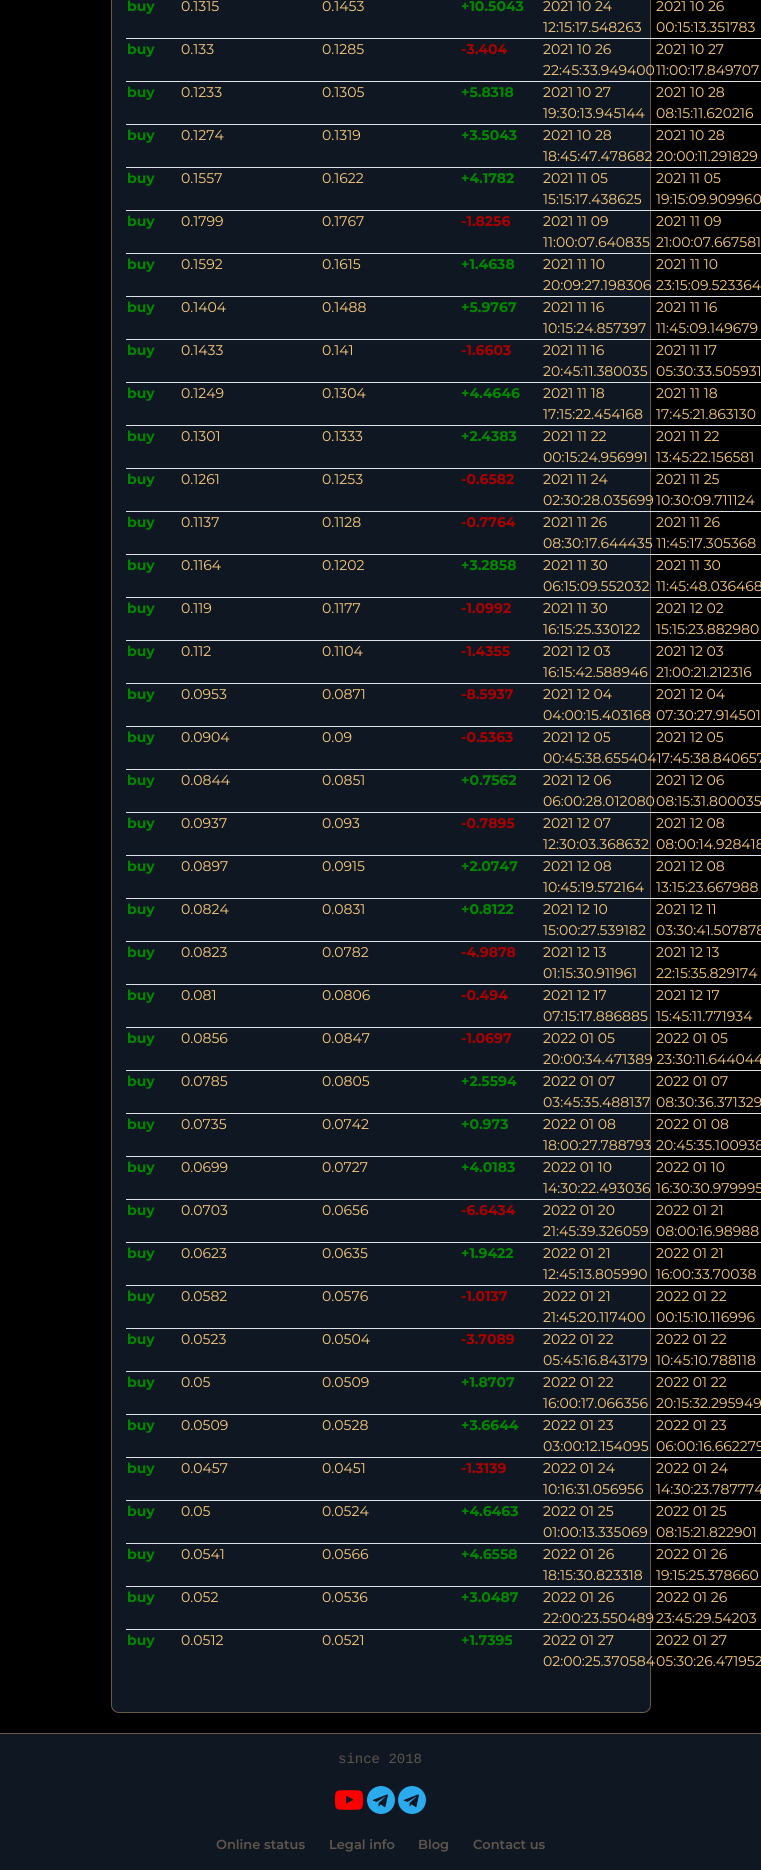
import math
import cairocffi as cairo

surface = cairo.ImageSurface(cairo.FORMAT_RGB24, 761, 1870)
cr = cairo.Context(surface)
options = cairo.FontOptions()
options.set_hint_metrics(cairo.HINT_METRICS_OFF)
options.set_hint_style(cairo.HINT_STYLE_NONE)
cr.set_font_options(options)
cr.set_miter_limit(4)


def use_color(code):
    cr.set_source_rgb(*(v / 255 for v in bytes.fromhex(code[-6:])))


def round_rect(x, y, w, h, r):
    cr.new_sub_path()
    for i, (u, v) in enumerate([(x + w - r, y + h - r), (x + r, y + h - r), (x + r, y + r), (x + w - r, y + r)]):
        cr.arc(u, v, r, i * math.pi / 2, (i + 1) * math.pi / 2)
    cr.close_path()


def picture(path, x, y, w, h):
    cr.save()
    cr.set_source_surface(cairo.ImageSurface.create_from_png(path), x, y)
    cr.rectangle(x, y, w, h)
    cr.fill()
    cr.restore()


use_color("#000000")
cr.paint()
use_color("#0f1723")
round_rect(111, -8, 540, 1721, 8)
cr.fill()
round_rect(111.5, -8.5, 539, 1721, 7.5)
cr.set_source_rgba(0.976, 0.796, 0.486, 0.38)
cr.set_line_width(1)
cr.stroke()
cr.set_source_rgba(0, 0, 0, 0.05)
cr.rectangle(650, 0, 1, 38)
cr.fill()
cr.select_font_face("Montserrat", cairo.FONT_SLANT_NORMAL, cairo.FONT_WEIGHT_BOLD)
cr.set_font_size(14)
use_color("#008800")
cr.move_to(127, 11)
cr.show_text("buy")
cr.select_font_face("Montserrat")
use_color("#facc7d")
cr.move_to(181, 11)
cr.show_text("0.1315")
cr.move_to(322, 11)
cr.show_text("0.1453")
cr.select_font_face("Montserrat", cairo.FONT_SLANT_NORMAL, cairo.FONT_WEIGHT_BOLD)
use_color("#008800")
cr.move_to(461, 11)
cr.show_text("+10.5043")
cr.select_font_face("Montserrat")
use_color("#facc7d")
cr.move_to(543, 11)
cr.show_text("2021 10 24")
cr.move_to(543, 32)
cr.show_text("12:15:17.548263")
cr.move_to(656, 11)
cr.show_text("2021 10 26")
cr.move_to(656, 32)
cr.show_text("00:15:13.351783")
cr.select_font_face("Montserrat", cairo.FONT_SLANT_NORMAL, cairo.FONT_WEIGHT_BOLD)
use_color("#008800")
cr.move_to(127, 54)
cr.show_text("buy")
cr.select_font_face("Montserrat")
use_color("#facc7d")
cr.move_to(181, 54)
cr.show_text("0.133")
cr.move_to(322, 54)
cr.show_text("0.1285")
cr.select_font_face("Montserrat", cairo.FONT_SLANT_NORMAL, cairo.FONT_WEIGHT_BOLD)
use_color("#aa0000")
cr.move_to(461, 54)
cr.show_text("-3.404")
cr.select_font_face("Montserrat")
use_color("#facc7d")
cr.move_to(543, 54)
cr.show_text("2021 10 26")
cr.move_to(543, 75)
cr.show_text("22:45:33.949400")
use_color("#dee2e6")
cr.rectangle(126, 38, 635, 1)
cr.fill()
use_color("#facc7d")
cr.move_to(656, 54)
cr.show_text("2021 10 27")
cr.move_to(656, 75)
cr.show_text("11:00:17.849707")
cr.set_source_rgba(0, 0, 0, 0.05)
cr.rectangle(650, 82, 1, 42)
cr.fill()
cr.select_font_face("Montserrat", cairo.FONT_SLANT_NORMAL, cairo.FONT_WEIGHT_BOLD)
use_color("#008800")
cr.move_to(127, 97)
cr.show_text("buy")
cr.select_font_face("Montserrat")
use_color("#facc7d")
cr.move_to(181, 97)
cr.show_text("0.1233")
cr.move_to(322, 97)
cr.show_text("0.1305")
cr.select_font_face("Montserrat", cairo.FONT_SLANT_NORMAL, cairo.FONT_WEIGHT_BOLD)
use_color("#008800")
cr.move_to(461, 97)
cr.show_text("+5.8318")
cr.select_font_face("Montserrat")
use_color("#facc7d")
cr.move_to(543, 97)
cr.show_text("2021 10 27")
cr.move_to(543, 118)
cr.show_text("19:30:13.945144")
use_color("#dee2e6")
cr.rectangle(126, 81, 635, 1)
cr.fill()
use_color("#facc7d")
cr.move_to(656, 97)
cr.show_text("2021 10 28")
cr.move_to(656, 118)
cr.show_text("08:15:11.620216")
cr.select_font_face("Montserrat", cairo.FONT_SLANT_NORMAL, cairo.FONT_WEIGHT_BOLD)
use_color("#008800")
cr.move_to(127, 140)
cr.show_text("buy")
cr.select_font_face("Montserrat")
use_color("#facc7d")
cr.move_to(181, 140)
cr.show_text("0.1274")
cr.move_to(322, 140)
cr.show_text("0.1319")
cr.select_font_face("Montserrat", cairo.FONT_SLANT_NORMAL, cairo.FONT_WEIGHT_BOLD)
use_color("#008800")
cr.move_to(461, 140)
cr.show_text("+3.5043")
cr.select_font_face("Montserrat")
use_color("#facc7d")
cr.move_to(543, 140)
cr.show_text("2021 10 28")
cr.move_to(543, 161)
cr.show_text("18:45:47.478682")
use_color("#dee2e6")
cr.rectangle(126, 124, 635, 1)
cr.fill()
use_color("#facc7d")
cr.move_to(656, 140)
cr.show_text("2021 10 28")
cr.move_to(656, 161)
cr.show_text("20:00:11.291829")
cr.set_source_rgba(0, 0, 0, 0.05)
cr.rectangle(650, 168, 1, 42)
cr.fill()
cr.select_font_face("Montserrat", cairo.FONT_SLANT_NORMAL, cairo.FONT_WEIGHT_BOLD)
use_color("#008800")
cr.move_to(127, 183)
cr.show_text("buy")
cr.select_font_face("Montserrat")
use_color("#facc7d")
cr.move_to(181, 183)
cr.show_text("0.1557")
cr.move_to(322, 183)
cr.show_text("0.1622")
cr.select_font_face("Montserrat", cairo.FONT_SLANT_NORMAL, cairo.FONT_WEIGHT_BOLD)
use_color("#008800")
cr.move_to(461, 183)
cr.show_text("+4.1782")
cr.select_font_face("Montserrat")
use_color("#facc7d")
cr.move_to(543, 183)
cr.show_text("2021 11 05")
cr.move_to(543, 204)
cr.show_text("15:15:17.438625")
use_color("#dee2e6")
cr.rectangle(126, 167, 635, 1)
cr.fill()
use_color("#facc7d")
cr.move_to(656, 183)
cr.show_text("2021 11 05")
cr.move_to(656, 204)
cr.show_text("19:15:09.909960")
cr.select_font_face("Montserrat", cairo.FONT_SLANT_NORMAL, cairo.FONT_WEIGHT_BOLD)
use_color("#008800")
cr.move_to(127, 226)
cr.show_text("buy")
cr.select_font_face("Montserrat")
use_color("#facc7d")
cr.move_to(181, 226)
cr.show_text("0.1799")
cr.move_to(322, 226)
cr.show_text("0.1767")
cr.select_font_face("Montserrat", cairo.FONT_SLANT_NORMAL, cairo.FONT_WEIGHT_BOLD)
use_color("#aa0000")
cr.move_to(461, 226)
cr.show_text("-1.8256")
cr.select_font_face("Montserrat")
use_color("#facc7d")
cr.move_to(543, 226)
cr.show_text("2021 11 09")
cr.move_to(543, 247)
cr.show_text("11:00:07.640835")
use_color("#dee2e6")
cr.rectangle(126, 210, 635, 1)
cr.fill()
use_color("#facc7d")
cr.move_to(656, 226)
cr.show_text("2021 11 09")
cr.move_to(656, 247)
cr.show_text("21:00:07.667581")
cr.set_source_rgba(0, 0, 0, 0.05)
cr.rectangle(650, 254, 1, 42)
cr.fill()
cr.select_font_face("Montserrat", cairo.FONT_SLANT_NORMAL, cairo.FONT_WEIGHT_BOLD)
use_color("#008800")
cr.move_to(127, 269)
cr.show_text("buy")
cr.select_font_face("Montserrat")
use_color("#facc7d")
cr.move_to(181, 269)
cr.show_text("0.1592")
cr.move_to(322, 269)
cr.show_text("0.1615")
cr.select_font_face("Montserrat", cairo.FONT_SLANT_NORMAL, cairo.FONT_WEIGHT_BOLD)
use_color("#008800")
cr.move_to(461, 269)
cr.show_text("+1.4638")
cr.select_font_face("Montserrat")
use_color("#facc7d")
cr.move_to(543, 269)
cr.show_text("2021 11 10")
cr.move_to(543, 290)
cr.show_text("20:09:27.198306")
use_color("#dee2e6")
cr.rectangle(126, 253, 635, 1)
cr.fill()
use_color("#facc7d")
cr.move_to(656, 269)
cr.show_text("2021 11 10")
cr.move_to(656, 290)
cr.show_text("23:15:09.523364")
cr.select_font_face("Montserrat", cairo.FONT_SLANT_NORMAL, cairo.FONT_WEIGHT_BOLD)
use_color("#008800")
cr.move_to(127, 312)
cr.show_text("buy")
cr.select_font_face("Montserrat")
use_color("#facc7d")
cr.move_to(181, 312)
cr.show_text("0.1404")
cr.move_to(322, 312)
cr.show_text("0.1488")
cr.select_font_face("Montserrat", cairo.FONT_SLANT_NORMAL, cairo.FONT_WEIGHT_BOLD)
use_color("#008800")
cr.move_to(461, 312)
cr.show_text("+5.9767")
cr.select_font_face("Montserrat")
use_color("#facc7d")
cr.move_to(543, 312)
cr.show_text("2021 11 16")
cr.move_to(543, 333)
cr.show_text("10:15:24.857397")
use_color("#dee2e6")
cr.rectangle(126, 296, 635, 1)
cr.fill()
use_color("#facc7d")
cr.move_to(656, 312)
cr.show_text("2021 11 16")
cr.move_to(656, 333)
cr.show_text("11:45:09.149679")
cr.set_source_rgba(0, 0, 0, 0.05)
cr.rectangle(650, 340, 1, 42)
cr.fill()
cr.select_font_face("Montserrat", cairo.FONT_SLANT_NORMAL, cairo.FONT_WEIGHT_BOLD)
use_color("#008800")
cr.move_to(127, 355)
cr.show_text("buy")
cr.select_font_face("Montserrat")
use_color("#facc7d")
cr.move_to(181, 355)
cr.show_text("0.1433")
cr.move_to(322, 355)
cr.show_text("0.141")
cr.select_font_face("Montserrat", cairo.FONT_SLANT_NORMAL, cairo.FONT_WEIGHT_BOLD)
use_color("#aa0000")
cr.move_to(461, 355)
cr.show_text("-1.6603")
cr.select_font_face("Montserrat")
use_color("#facc7d")
cr.move_to(543, 355)
cr.show_text("2021 11 16")
cr.move_to(543, 376)
cr.show_text("20:45:11.380035")
use_color("#dee2e6")
cr.rectangle(126, 339, 635, 1)
cr.fill()
use_color("#facc7d")
cr.move_to(656, 355)
cr.show_text("2021 11 17")
cr.move_to(656, 376)
cr.show_text("05:30:33.505931")
cr.select_font_face("Montserrat", cairo.FONT_SLANT_NORMAL, cairo.FONT_WEIGHT_BOLD)
use_color("#008800")
cr.move_to(127, 398)
cr.show_text("buy")
cr.select_font_face("Montserrat")
use_color("#facc7d")
cr.move_to(181, 398)
cr.show_text("0.1249")
cr.move_to(322, 398)
cr.show_text("0.1304")
cr.select_font_face("Montserrat", cairo.FONT_SLANT_NORMAL, cairo.FONT_WEIGHT_BOLD)
use_color("#008800")
cr.move_to(461, 398)
cr.show_text("+4.4646")
cr.select_font_face("Montserrat")
use_color("#facc7d")
cr.move_to(543, 398)
cr.show_text("2021 11 18")
cr.move_to(543, 419)
cr.show_text("17:15:22.454168")
use_color("#dee2e6")
cr.rectangle(126, 382, 635, 1)
cr.fill()
use_color("#facc7d")
cr.move_to(656, 398)
cr.show_text("2021 11 18")
cr.move_to(656, 419)
cr.show_text("17:45:21.863130")
cr.set_source_rgba(0, 0, 0, 0.05)
cr.rectangle(650, 426, 1, 42)
cr.fill()
cr.select_font_face("Montserrat", cairo.FONT_SLANT_NORMAL, cairo.FONT_WEIGHT_BOLD)
use_color("#008800")
cr.move_to(127, 441)
cr.show_text("buy")
cr.select_font_face("Montserrat")
use_color("#facc7d")
cr.move_to(181, 441)
cr.show_text("0.1301")
cr.move_to(322, 441)
cr.show_text("0.1333")
cr.select_font_face("Montserrat", cairo.FONT_SLANT_NORMAL, cairo.FONT_WEIGHT_BOLD)
use_color("#008800")
cr.move_to(461, 441)
cr.show_text("+2.4383")
cr.select_font_face("Montserrat")
use_color("#facc7d")
cr.move_to(543, 441)
cr.show_text("2021 11 22")
cr.move_to(543, 462)
cr.show_text("00:15:24.956991")
use_color("#dee2e6")
cr.rectangle(126, 425, 635, 1)
cr.fill()
use_color("#facc7d")
cr.move_to(656, 441)
cr.show_text("2021 11 22")
cr.move_to(656, 462)
cr.show_text("13:45:22.156581")
cr.select_font_face("Montserrat", cairo.FONT_SLANT_NORMAL, cairo.FONT_WEIGHT_BOLD)
use_color("#008800")
cr.move_to(127, 484)
cr.show_text("buy")
cr.select_font_face("Montserrat")
use_color("#facc7d")
cr.move_to(181, 484)
cr.show_text("0.1261")
cr.move_to(322, 484)
cr.show_text("0.1253")
cr.select_font_face("Montserrat", cairo.FONT_SLANT_NORMAL, cairo.FONT_WEIGHT_BOLD)
use_color("#aa0000")
cr.move_to(461, 484)
cr.show_text("-0.6582")
cr.select_font_face("Montserrat")
use_color("#facc7d")
cr.move_to(543, 484)
cr.show_text("2021 11 24")
cr.move_to(543, 505)
cr.show_text("02:30:28.035699")
use_color("#dee2e6")
cr.rectangle(126, 468, 635, 1)
cr.fill()
use_color("#facc7d")
cr.move_to(656, 484)
cr.show_text("2021 11 25")
cr.move_to(656, 505)
cr.show_text("10:30:09.711124")
cr.set_source_rgba(0, 0, 0, 0.05)
cr.rectangle(650, 512, 1, 42)
cr.fill()
cr.select_font_face("Montserrat", cairo.FONT_SLANT_NORMAL, cairo.FONT_WEIGHT_BOLD)
use_color("#008800")
cr.move_to(127, 527)
cr.show_text("buy")
cr.select_font_face("Montserrat")
use_color("#facc7d")
cr.move_to(181, 527)
cr.show_text("0.1137")
cr.move_to(322, 527)
cr.show_text("0.1128")
cr.select_font_face("Montserrat", cairo.FONT_SLANT_NORMAL, cairo.FONT_WEIGHT_BOLD)
use_color("#aa0000")
cr.move_to(461, 527)
cr.show_text("-0.7764")
cr.select_font_face("Montserrat")
use_color("#facc7d")
cr.move_to(543, 527)
cr.show_text("2021 11 26")
cr.move_to(543, 548)
cr.show_text("08:30:17.644435 11:45:17.305368")
use_color("#dee2e6")
cr.rectangle(126, 511, 635, 1)
cr.fill()
use_color("#facc7d")
cr.move_to(656, 527)
cr.show_text("2021 11 26")
cr.select_font_face("Montserrat", cairo.FONT_SLANT_NORMAL, cairo.FONT_WEIGHT_BOLD)
use_color("#008800")
cr.move_to(127, 570)
cr.show_text("buy")
cr.select_font_face("Montserrat")
use_color("#facc7d")
cr.move_to(181, 570)
cr.show_text("0.1164")
cr.move_to(322, 570)
cr.show_text("0.1202")
cr.select_font_face("Montserrat", cairo.FONT_SLANT_NORMAL, cairo.FONT_WEIGHT_BOLD)
use_color("#008800")
cr.move_to(461, 570)
cr.show_text("+3.2858")
cr.select_font_face("Montserrat")
use_color("#facc7d")
cr.move_to(543, 570)
cr.show_text("2021 11 30")
cr.move_to(543, 591)
cr.show_text("06:15:09.552032")
use_color("#dee2e6")
cr.rectangle(126, 554, 635, 1)
cr.fill()
use_color("#facc7d")
cr.move_to(656, 570)
cr.show_text("2021 11 30")
cr.move_to(656, 591)
cr.show_text("11:45:48.036468")
cr.set_source_rgba(0, 0, 0, 0.05)
cr.rectangle(650, 598, 1, 42)
cr.fill()
cr.select_font_face("Montserrat", cairo.FONT_SLANT_NORMAL, cairo.FONT_WEIGHT_BOLD)
use_color("#008800")
cr.move_to(127, 613)
cr.show_text("buy")
cr.select_font_face("Montserrat")
use_color("#facc7d")
cr.move_to(181, 613)
cr.show_text("0.119")
cr.move_to(322, 613)
cr.show_text("0.1177")
cr.select_font_face("Montserrat", cairo.FONT_SLANT_NORMAL, cairo.FONT_WEIGHT_BOLD)
use_color("#aa0000")
cr.move_to(461, 613)
cr.show_text("-1.0992")
cr.select_font_face("Montserrat")
use_color("#facc7d")
cr.move_to(543, 613)
cr.show_text("2021 11 30")
cr.move_to(543, 634)
cr.show_text("16:15:25.330122")
use_color("#dee2e6")
cr.rectangle(126, 597, 635, 1)
cr.fill()
use_color("#facc7d")
cr.move_to(656, 613)
cr.show_text("2021 12 02")
cr.move_to(656, 634)
cr.show_text("15:15:23.882980")
cr.select_font_face("Montserrat", cairo.FONT_SLANT_NORMAL, cairo.FONT_WEIGHT_BOLD)
use_color("#008800")
cr.move_to(127, 656)
cr.show_text("buy")
cr.select_font_face("Montserrat")
use_color("#facc7d")
cr.move_to(181, 656)
cr.show_text("0.112")
cr.move_to(322, 656)
cr.show_text("0.1104")
cr.select_font_face("Montserrat", cairo.FONT_SLANT_NORMAL, cairo.FONT_WEIGHT_BOLD)
use_color("#aa0000")
cr.move_to(461, 656)
cr.show_text("-1.4355")
cr.select_font_face("Montserrat")
use_color("#facc7d")
cr.move_to(543, 656)
cr.show_text("2021 12 03")
cr.move_to(543, 677)
cr.show_text("16:15:42.588946")
use_color("#dee2e6")
cr.rectangle(126, 640, 635, 1)
cr.fill()
use_color("#facc7d")
cr.move_to(656, 656)
cr.show_text("2021 12 03")
cr.move_to(656, 677)
cr.show_text("21:00:21.212316")
cr.set_source_rgba(0, 0, 0, 0.05)
cr.rectangle(650, 684, 1, 42)
cr.fill()
cr.select_font_face("Montserrat", cairo.FONT_SLANT_NORMAL, cairo.FONT_WEIGHT_BOLD)
use_color("#008800")
cr.move_to(127, 699)
cr.show_text("buy")
cr.select_font_face("Montserrat")
use_color("#facc7d")
cr.move_to(181, 699)
cr.show_text("0.0953")
cr.move_to(322, 699)
cr.show_text("0.0871")
cr.select_font_face("Montserrat", cairo.FONT_SLANT_NORMAL, cairo.FONT_WEIGHT_BOLD)
use_color("#aa0000")
cr.move_to(461, 699)
cr.show_text("-8.5937")
cr.select_font_face("Montserrat")
use_color("#facc7d")
cr.move_to(543, 699)
cr.show_text("2021 12 04")
cr.move_to(543, 720)
cr.show_text("04:00:15.403168")
use_color("#dee2e6")
cr.rectangle(126, 683, 635, 1)
cr.fill()
use_color("#facc7d")
cr.move_to(656, 699)
cr.show_text("2021 12 04")
cr.move_to(656, 720)
cr.show_text("07:30:27.914501")
cr.select_font_face("Montserrat", cairo.FONT_SLANT_NORMAL, cairo.FONT_WEIGHT_BOLD)
use_color("#008800")
cr.move_to(127, 742)
cr.show_text("buy")
cr.select_font_face("Montserrat")
use_color("#facc7d")
cr.move_to(181, 742)
cr.show_text("0.0904")
cr.move_to(322, 742)
cr.show_text("0.09")
cr.select_font_face("Montserrat", cairo.FONT_SLANT_NORMAL, cairo.FONT_WEIGHT_BOLD)
use_color("#aa0000")
cr.move_to(461, 742)
cr.show_text("-0.5363")
cr.select_font_face("Montserrat")
use_color("#facc7d")
cr.move_to(543, 742)
cr.show_text("2021 12 05")
cr.move_to(543, 763)
cr.show_text("00:45:38.65540417:45:38.840657")
use_color("#dee2e6")
cr.rectangle(126, 726, 635, 1)
cr.fill()
use_color("#facc7d")
cr.move_to(656, 742)
cr.show_text("2021 12 05")
cr.set_source_rgba(0, 0, 0, 0.05)
cr.rectangle(650, 770, 1, 42)
cr.fill()
cr.select_font_face("Montserrat", cairo.FONT_SLANT_NORMAL, cairo.FONT_WEIGHT_BOLD)
use_color("#008800")
cr.move_to(127, 785)
cr.show_text("buy")
cr.select_font_face("Montserrat")
use_color("#facc7d")
cr.move_to(181, 785)
cr.show_text("0.0844")
cr.move_to(322, 785)
cr.show_text("0.0851")
cr.select_font_face("Montserrat", cairo.FONT_SLANT_NORMAL, cairo.FONT_WEIGHT_BOLD)
use_color("#008800")
cr.move_to(461, 785)
cr.show_text("+0.7562")
cr.select_font_face("Montserrat")
use_color("#facc7d")
cr.move_to(543, 785)
cr.show_text("2021 12 06")
cr.move_to(543, 806)
cr.show_text("06:00:28.012080")
use_color("#dee2e6")
cr.rectangle(126, 769, 635, 1)
cr.fill()
use_color("#facc7d")
cr.move_to(656, 785)
cr.show_text("2021 12 06")
cr.move_to(656, 806)
cr.show_text("08:15:31.800035")
cr.select_font_face("Montserrat", cairo.FONT_SLANT_NORMAL, cairo.FONT_WEIGHT_BOLD)
use_color("#008800")
cr.move_to(127, 828)
cr.show_text("buy")
cr.select_font_face("Montserrat")
use_color("#facc7d")
cr.move_to(181, 828)
cr.show_text("0.0937")
cr.move_to(322, 828)
cr.show_text("0.093")
cr.select_font_face("Montserrat", cairo.FONT_SLANT_NORMAL, cairo.FONT_WEIGHT_BOLD)
use_color("#aa0000")
cr.move_to(461, 828)
cr.show_text("-0.7895")
cr.select_font_face("Montserrat")
use_color("#facc7d")
cr.move_to(543, 828)
cr.show_text("2021 12 07")
cr.move_to(543, 849)
cr.show_text("12:30:03.368632")
use_color("#dee2e6")
cr.rectangle(126, 812, 635, 1)
cr.fill()
use_color("#facc7d")
cr.move_to(656, 828)
cr.show_text("2021 12 08")
cr.move_to(656, 849)
cr.show_text("08:00:14.928418")
cr.set_source_rgba(0, 0, 0, 0.05)
cr.rectangle(650, 856, 1, 42)
cr.fill()
cr.select_font_face("Montserrat", cairo.FONT_SLANT_NORMAL, cairo.FONT_WEIGHT_BOLD)
use_color("#008800")
cr.move_to(127, 871)
cr.show_text("buy")
cr.select_font_face("Montserrat")
use_color("#facc7d")
cr.move_to(181, 871)
cr.show_text("0.0897")
cr.move_to(322, 871)
cr.show_text("0.0915")
cr.select_font_face("Montserrat", cairo.FONT_SLANT_NORMAL, cairo.FONT_WEIGHT_BOLD)
use_color("#008800")
cr.move_to(461, 871)
cr.show_text("+2.0747")
cr.select_font_face("Montserrat")
use_color("#facc7d")
cr.move_to(543, 871)
cr.show_text("2021 12 08")
cr.move_to(543, 892)
cr.show_text("10:45:19.572164")
use_color("#dee2e6")
cr.rectangle(126, 855, 635, 1)
cr.fill()
use_color("#facc7d")
cr.move_to(656, 871)
cr.show_text("2021 12 08")
cr.move_to(656, 892)
cr.show_text("13:15:23.667988")
cr.select_font_face("Montserrat", cairo.FONT_SLANT_NORMAL, cairo.FONT_WEIGHT_BOLD)
use_color("#008800")
cr.move_to(127, 914)
cr.show_text("buy")
cr.select_font_face("Montserrat")
use_color("#facc7d")
cr.move_to(181, 914)
cr.show_text("0.0824")
cr.move_to(322, 914)
cr.show_text("0.0831")
cr.select_font_face("Montserrat", cairo.FONT_SLANT_NORMAL, cairo.FONT_WEIGHT_BOLD)
use_color("#008800")
cr.move_to(461, 914)
cr.show_text("+0.8122")
cr.select_font_face("Montserrat")
use_color("#facc7d")
cr.move_to(543, 914)
cr.show_text("2021 12 10")
cr.move_to(543, 935)
cr.show_text("15:00:27.539182")
use_color("#dee2e6")
cr.rectangle(126, 898, 635, 1)
cr.fill()
use_color("#facc7d")
cr.move_to(656, 914)
cr.show_text("2021 12 11")
cr.move_to(656, 935)
cr.show_text("03:30:41.507878")
cr.set_source_rgba(0, 0, 0, 0.05)
cr.rectangle(650, 942, 1, 42)
cr.fill()
cr.select_font_face("Montserrat", cairo.FONT_SLANT_NORMAL, cairo.FONT_WEIGHT_BOLD)
use_color("#008800")
cr.move_to(127, 957)
cr.show_text("buy")
cr.select_font_face("Montserrat")
use_color("#facc7d")
cr.move_to(181, 957)
cr.show_text("0.0823")
cr.move_to(322, 957)
cr.show_text("0.0782")
cr.select_font_face("Montserrat", cairo.FONT_SLANT_NORMAL, cairo.FONT_WEIGHT_BOLD)
use_color("#aa0000")
cr.move_to(461, 957)
cr.show_text("-4.9878")
cr.select_font_face("Montserrat")
use_color("#facc7d")
cr.move_to(543, 957)
cr.show_text("2021 12 13")
cr.move_to(543, 978)
cr.show_text("01:15:30.911961")
use_color("#dee2e6")
cr.rectangle(126, 941, 635, 1)
cr.fill()
use_color("#facc7d")
cr.move_to(656, 957)
cr.show_text("2021 12 13")
cr.move_to(656, 978)
cr.show_text("22:15:35.829174")
cr.select_font_face("Montserrat", cairo.FONT_SLANT_NORMAL, cairo.FONT_WEIGHT_BOLD)
use_color("#008800")
cr.move_to(127, 1000)
cr.show_text("buy")
cr.select_font_face("Montserrat")
use_color("#facc7d")
cr.move_to(181, 1000)
cr.show_text("0.081")
cr.move_to(322, 1000)
cr.show_text("0.0806")
cr.select_font_face("Montserrat", cairo.FONT_SLANT_NORMAL, cairo.FONT_WEIGHT_BOLD)
use_color("#aa0000")
cr.move_to(461, 1000)
cr.show_text("-0.494")
cr.select_font_face("Montserrat")
use_color("#facc7d")
cr.move_to(543, 1000)
cr.show_text("2021 12 17")
cr.move_to(543, 1021)
cr.show_text("07:15:17.886885")
use_color("#dee2e6")
cr.rectangle(126, 984, 635, 1)
cr.fill()
use_color("#facc7d")
cr.move_to(656, 1000)
cr.show_text("2021 12 17")
cr.move_to(656, 1021)
cr.show_text("15:45:11.771934")
cr.set_source_rgba(0, 0, 0, 0.05)
cr.rectangle(650, 1028, 1, 42)
cr.fill()
cr.select_font_face("Montserrat", cairo.FONT_SLANT_NORMAL, cairo.FONT_WEIGHT_BOLD)
use_color("#008800")
cr.move_to(127, 1043)
cr.show_text("buy")
cr.select_font_face("Montserrat")
use_color("#facc7d")
cr.move_to(181, 1043)
cr.show_text("0.0856")
cr.move_to(322, 1043)
cr.show_text("0.0847")
cr.select_font_face("Montserrat", cairo.FONT_SLANT_NORMAL, cairo.FONT_WEIGHT_BOLD)
use_color("#aa0000")
cr.move_to(461, 1043)
cr.show_text("-1.0697")
cr.select_font_face("Montserrat")
use_color("#facc7d")
cr.move_to(543, 1043)
cr.show_text("2022 01 05")
cr.move_to(543, 1064)
cr.show_text("20:00:34.471389 23:30:11.644044")
use_color("#dee2e6")
cr.rectangle(126, 1027, 635, 1)
cr.fill()
use_color("#facc7d")
cr.move_to(656, 1043)
cr.show_text("2022 01 05")
cr.select_font_face("Montserrat", cairo.FONT_SLANT_NORMAL, cairo.FONT_WEIGHT_BOLD)
use_color("#008800")
cr.move_to(127, 1086)
cr.show_text("buy")
cr.select_font_face("Montserrat")
use_color("#facc7d")
cr.move_to(181, 1086)
cr.show_text("0.0785")
cr.move_to(322, 1086)
cr.show_text("0.0805")
cr.select_font_face("Montserrat", cairo.FONT_SLANT_NORMAL, cairo.FONT_WEIGHT_BOLD)
use_color("#008800")
cr.move_to(461, 1086)
cr.show_text("+2.5594")
cr.select_font_face("Montserrat")
use_color("#facc7d")
cr.move_to(543, 1086)
cr.show_text("2022 01 07")
cr.move_to(543, 1107)
cr.show_text("03:45:35.488137")
use_color("#dee2e6")
cr.rectangle(126, 1070, 635, 1)
cr.fill()
use_color("#facc7d")
cr.move_to(656, 1086)
cr.show_text("2022 01 07")
cr.move_to(656, 1107)
cr.show_text("08:30:36.371329")
cr.set_source_rgba(0, 0, 0, 0.05)
cr.rectangle(650, 1114, 1, 42)
cr.fill()
cr.select_font_face("Montserrat", cairo.FONT_SLANT_NORMAL, cairo.FONT_WEIGHT_BOLD)
use_color("#008800")
cr.move_to(127, 1129)
cr.show_text("buy")
cr.select_font_face("Montserrat")
use_color("#facc7d")
cr.move_to(181, 1129)
cr.show_text("0.0735")
cr.move_to(322, 1129)
cr.show_text("0.0742")
cr.select_font_face("Montserrat", cairo.FONT_SLANT_NORMAL, cairo.FONT_WEIGHT_BOLD)
use_color("#008800")
cr.move_to(461, 1129)
cr.show_text("+0.973")
cr.select_font_face("Montserrat")
use_color("#facc7d")
cr.move_to(543, 1129)
cr.show_text("2022 01 08")
cr.move_to(543, 1150)
cr.show_text("18:00:27.788793")
use_color("#dee2e6")
cr.rectangle(126, 1113, 635, 1)
cr.fill()
use_color("#facc7d")
cr.move_to(656, 1129)
cr.show_text("2022 01 08")
cr.move_to(656, 1150)
cr.show_text("20:45:35.100938")
cr.select_font_face("Montserrat", cairo.FONT_SLANT_NORMAL, cairo.FONT_WEIGHT_BOLD)
use_color("#008800")
cr.move_to(127, 1172)
cr.show_text("buy")
cr.select_font_face("Montserrat")
use_color("#facc7d")
cr.move_to(181, 1172)
cr.show_text("0.0699")
cr.move_to(322, 1172)
cr.show_text("0.0727")
cr.select_font_face("Montserrat", cairo.FONT_SLANT_NORMAL, cairo.FONT_WEIGHT_BOLD)
use_color("#008800")
cr.move_to(461, 1172)
cr.show_text("+4.0183")
cr.select_font_face("Montserrat")
use_color("#facc7d")
cr.move_to(543, 1172)
cr.show_text("2022 01 10")
cr.move_to(543, 1193)
cr.show_text("14:30:22.493036")
use_color("#dee2e6")
cr.rectangle(126, 1156, 635, 1)
cr.fill()
use_color("#facc7d")
cr.move_to(656, 1172)
cr.show_text("2022 01 10")
cr.move_to(656, 1193)
cr.show_text("16:30:30.979995")
cr.set_source_rgba(0, 0, 0, 0.05)
cr.rectangle(650, 1200, 1, 42)
cr.fill()
cr.select_font_face("Montserrat", cairo.FONT_SLANT_NORMAL, cairo.FONT_WEIGHT_BOLD)
use_color("#008800")
cr.move_to(127, 1215)
cr.show_text("buy")
cr.select_font_face("Montserrat")
use_color("#facc7d")
cr.move_to(181, 1215)
cr.show_text("0.0703")
cr.move_to(322, 1215)
cr.show_text("0.0656")
cr.select_font_face("Montserrat", cairo.FONT_SLANT_NORMAL, cairo.FONT_WEIGHT_BOLD)
use_color("#aa0000")
cr.move_to(461, 1215)
cr.show_text("-6.6434")
cr.select_font_face("Montserrat")
use_color("#facc7d")
cr.move_to(543, 1215)
cr.show_text("2022 01 20")
cr.move_to(543, 1236)
cr.show_text("21:45:39.326059")
use_color("#dee2e6")
cr.rectangle(126, 1199, 635, 1)
cr.fill()
use_color("#facc7d")
cr.move_to(656, 1215)
cr.show_text("2022 01 21")
cr.move_to(656, 1236)
cr.show_text("08:00:16.98988")
cr.select_font_face("Montserrat", cairo.FONT_SLANT_NORMAL, cairo.FONT_WEIGHT_BOLD)
use_color("#008800")
cr.move_to(127, 1258)
cr.show_text("buy")
cr.select_font_face("Montserrat")
use_color("#facc7d")
cr.move_to(181, 1258)
cr.show_text("0.0623")
cr.move_to(322, 1258)
cr.show_text("0.0635")
cr.select_font_face("Montserrat", cairo.FONT_SLANT_NORMAL, cairo.FONT_WEIGHT_BOLD)
use_color("#008800")
cr.move_to(461, 1258)
cr.show_text("+1.9422")
cr.select_font_face("Montserrat")
use_color("#facc7d")
cr.move_to(543, 1258)
cr.show_text("2022 01 21")
cr.move_to(543, 1279)
cr.show_text("12:45:13.805990")
use_color("#dee2e6")
cr.rectangle(126, 1242, 635, 1)
cr.fill()
use_color("#facc7d")
cr.move_to(656, 1258)
cr.show_text("2022 01 21")
cr.move_to(656, 1279)
cr.show_text("16:00:33.70038")
cr.set_source_rgba(0, 0, 0, 0.05)
cr.rectangle(650, 1286, 1, 42)
cr.fill()
cr.select_font_face("Montserrat", cairo.FONT_SLANT_NORMAL, cairo.FONT_WEIGHT_BOLD)
use_color("#008800")
cr.move_to(127, 1301)
cr.show_text("buy")
cr.select_font_face("Montserrat")
use_color("#facc7d")
cr.move_to(181, 1301)
cr.show_text("0.0582")
cr.move_to(322, 1301)
cr.show_text("0.0576")
cr.select_font_face("Montserrat", cairo.FONT_SLANT_NORMAL, cairo.FONT_WEIGHT_BOLD)
use_color("#aa0000")
cr.move_to(461, 1301)
cr.show_text("-1.0137")
cr.select_font_face("Montserrat")
use_color("#facc7d")
cr.move_to(543, 1301)
cr.show_text("2022 01 21")
cr.move_to(543, 1322)
cr.show_text("21:45:20.117400")
use_color("#dee2e6")
cr.rectangle(126, 1285, 635, 1)
cr.fill()
use_color("#facc7d")
cr.move_to(656, 1301)
cr.show_text("2022 01 22")
cr.move_to(656, 1322)
cr.show_text("00:15:10.116996")
cr.select_font_face("Montserrat", cairo.FONT_SLANT_NORMAL, cairo.FONT_WEIGHT_BOLD)
use_color("#008800")
cr.move_to(127, 1344)
cr.show_text("buy")
cr.select_font_face("Montserrat")
use_color("#facc7d")
cr.move_to(181, 1344)
cr.show_text("0.0523")
cr.move_to(322, 1344)
cr.show_text("0.0504")
cr.select_font_face("Montserrat", cairo.FONT_SLANT_NORMAL, cairo.FONT_WEIGHT_BOLD)
use_color("#aa0000")
cr.move_to(461, 1344)
cr.show_text("-3.7089")
cr.select_font_face("Montserrat")
use_color("#facc7d")
cr.move_to(543, 1344)
cr.show_text("2022 01 22")
cr.move_to(543, 1365)
cr.show_text("05:45:16.843179")
use_color("#dee2e6")
cr.rectangle(126, 1328, 635, 1)
cr.fill()
use_color("#facc7d")
cr.move_to(656, 1344)
cr.show_text("2022 01 22")
cr.move_to(656, 1365)
cr.show_text("10:45:10.788118")
cr.set_source_rgba(0, 0, 0, 0.05)
cr.rectangle(650, 1372, 1, 42)
cr.fill()
cr.select_font_face("Montserrat", cairo.FONT_SLANT_NORMAL, cairo.FONT_WEIGHT_BOLD)
use_color("#008800")
cr.move_to(127, 1387)
cr.show_text("buy")
cr.select_font_face("Montserrat")
use_color("#facc7d")
cr.move_to(181, 1387)
cr.show_text("0.05")
cr.move_to(322, 1387)
cr.show_text("0.0509")
cr.select_font_face("Montserrat", cairo.FONT_SLANT_NORMAL, cairo.FONT_WEIGHT_BOLD)
use_color("#008800")
cr.move_to(461, 1387)
cr.show_text("+1.8707")
cr.select_font_face("Montserrat")
use_color("#facc7d")
cr.move_to(543, 1387)
cr.show_text("2022 01 22")
cr.move_to(543, 1408)
cr.show_text("16:00:17.066356")
use_color("#dee2e6")
cr.rectangle(126, 1371, 635, 1)
cr.fill()
use_color("#facc7d")
cr.move_to(656, 1387)
cr.show_text("2022 01 22")
cr.move_to(656, 1408)
cr.show_text("20:15:32.295949")
cr.select_font_face("Montserrat", cairo.FONT_SLANT_NORMAL, cairo.FONT_WEIGHT_BOLD)
use_color("#008800")
cr.move_to(127, 1430)
cr.show_text("buy")
cr.select_font_face("Montserrat")
use_color("#facc7d")
cr.move_to(181, 1430)
cr.show_text("0.0509")
cr.move_to(322, 1430)
cr.show_text("0.0528")
cr.select_font_face("Montserrat", cairo.FONT_SLANT_NORMAL, cairo.FONT_WEIGHT_BOLD)
use_color("#008800")
cr.move_to(461, 1430)
cr.show_text("+3.6644")
cr.select_font_face("Montserrat")
use_color("#facc7d")
cr.move_to(543, 1430)
cr.show_text("2022 01 23")
cr.move_to(543, 1451)
cr.show_text("03:00:12.154095")
use_color("#dee2e6")
cr.rectangle(126, 1414, 635, 1)
cr.fill()
use_color("#facc7d")
cr.move_to(656, 1430)
cr.show_text("2022 01 23")
cr.move_to(656, 1451)
cr.show_text("06:00:16.662279")
cr.set_source_rgba(0, 0, 0, 0.05)
cr.rectangle(650, 1458, 1, 42)
cr.fill()
cr.select_font_face("Montserrat", cairo.FONT_SLANT_NORMAL, cairo.FONT_WEIGHT_BOLD)
use_color("#008800")
cr.move_to(127, 1473)
cr.show_text("buy")
cr.select_font_face("Montserrat")
use_color("#facc7d")
cr.move_to(181, 1473)
cr.show_text("0.0457")
cr.move_to(322, 1473)
cr.show_text("0.0451")
cr.select_font_face("Montserrat", cairo.FONT_SLANT_NORMAL, cairo.FONT_WEIGHT_BOLD)
use_color("#aa0000")
cr.move_to(461, 1473)
cr.show_text("-1.3139")
cr.select_font_face("Montserrat")
use_color("#facc7d")
cr.move_to(543, 1473)
cr.show_text("2022 01 24")
cr.move_to(543, 1494)
cr.show_text("10:16:31.056956")
use_color("#dee2e6")
cr.rectangle(126, 1457, 635, 1)
cr.fill()
use_color("#facc7d")
cr.move_to(656, 1473)
cr.show_text("2022 01 24")
cr.move_to(656, 1494)
cr.show_text("14:30:23.787774")
cr.select_font_face("Montserrat", cairo.FONT_SLANT_NORMAL, cairo.FONT_WEIGHT_BOLD)
use_color("#008800")
cr.move_to(127, 1516)
cr.show_text("buy")
cr.select_font_face("Montserrat")
use_color("#facc7d")
cr.move_to(181, 1516)
cr.show_text("0.05")
cr.move_to(322, 1516)
cr.show_text("0.0524")
cr.select_font_face("Montserrat", cairo.FONT_SLANT_NORMAL, cairo.FONT_WEIGHT_BOLD)
use_color("#008800")
cr.move_to(461, 1516)
cr.show_text("+4.6463")
cr.select_font_face("Montserrat")
use_color("#facc7d")
cr.move_to(543, 1516)
cr.show_text("2022 01 25")
cr.move_to(543, 1537)
cr.show_text("01:00:13.335069")
use_color("#dee2e6")
cr.rectangle(126, 1500, 635, 1)
cr.fill()
use_color("#facc7d")
cr.move_to(656, 1516)
cr.show_text("2022 01 25")
cr.move_to(656, 1537)
cr.show_text("08:15:21.822901")
cr.set_source_rgba(0, 0, 0, 0.05)
cr.rectangle(650, 1544, 1, 42)
cr.fill()
cr.select_font_face("Montserrat", cairo.FONT_SLANT_NORMAL, cairo.FONT_WEIGHT_BOLD)
use_color("#008800")
cr.move_to(127, 1559)
cr.show_text("buy")
cr.select_font_face("Montserrat")
use_color("#facc7d")
cr.move_to(181, 1559)
cr.show_text("0.0541")
cr.move_to(322, 1559)
cr.show_text("0.0566")
cr.select_font_face("Montserrat", cairo.FONT_SLANT_NORMAL, cairo.FONT_WEIGHT_BOLD)
use_color("#008800")
cr.move_to(461, 1559)
cr.show_text("+4.6558")
cr.select_font_face("Montserrat")
use_color("#facc7d")
cr.move_to(543, 1559)
cr.show_text("2022 01 26")
cr.move_to(543, 1580)
cr.show_text("18:15:30.823318")
use_color("#dee2e6")
cr.rectangle(126, 1543, 635, 1)
cr.fill()
use_color("#facc7d")
cr.move_to(656, 1559)
cr.show_text("2022 01 26")
cr.move_to(656, 1580)
cr.show_text("19:15:25.378660")
cr.select_font_face("Montserrat", cairo.FONT_SLANT_NORMAL, cairo.FONT_WEIGHT_BOLD)
use_color("#008800")
cr.move_to(127, 1602)
cr.show_text("buy")
cr.select_font_face("Montserrat")
use_color("#facc7d")
cr.move_to(181, 1602)
cr.show_text("0.052")
cr.move_to(322, 1602)
cr.show_text("0.0536")
cr.select_font_face("Montserrat", cairo.FONT_SLANT_NORMAL, cairo.FONT_WEIGHT_BOLD)
use_color("#008800")
cr.move_to(461, 1602)
cr.show_text("+3.0487")
cr.select_font_face("Montserrat")
use_color("#facc7d")
cr.move_to(543, 1602)
cr.show_text("2022 01 26")
cr.move_to(543, 1623)
cr.show_text("22:00:23.550489")
use_color("#dee2e6")
cr.rectangle(126, 1586, 635, 1)
cr.fill()
use_color("#facc7d")
cr.move_to(656, 1602)
cr.show_text("2022 01 26")
cr.move_to(656, 1623)
cr.show_text("23:45:29.54203")
cr.set_source_rgba(0, 0, 0, 0.05)
cr.rectangle(650, 1630, 1, 42)
cr.fill()
cr.select_font_face("Montserrat", cairo.FONT_SLANT_NORMAL, cairo.FONT_WEIGHT_BOLD)
use_color("#008800")
cr.move_to(127, 1645)
cr.show_text("buy")
cr.select_font_face("Montserrat")
use_color("#facc7d")
cr.move_to(181, 1645)
cr.show_text("0.0512")
cr.move_to(322, 1645)
cr.show_text("0.0521")
cr.select_font_face("Montserrat", cairo.FONT_SLANT_NORMAL, cairo.FONT_WEIGHT_BOLD)
use_color("#008800")
cr.move_to(461, 1645)
cr.show_text("+1.7395")
cr.select_font_face("Montserrat")
use_color("#facc7d")
cr.move_to(543, 1645)
cr.show_text("2022 01 27")
cr.move_to(543, 1666)
cr.show_text("02:00:25.370584")
use_color("#dee2e6")
cr.rectangle(126, 1629, 635, 1)
cr.fill()
use_color("#facc7d")
cr.move_to(656, 1645)
cr.show_text("2022 01 27")
cr.move_to(656, 1666)
cr.show_text("05:30:26.471952")
use_color("#0f1723")
cr.rectangle(0, 1734, 761, 136)
cr.fill()
use_color("#685b45")
cr.rectangle(0, 1733, 761, 1)
cr.fill()
cr.select_font_face("Liberation Mono")
use_color("#5e564c")
cr.move_to(338, 1763)
cr.show_text("since 2018")
picture("img1.png", 335, 1790, 28, 20)
picture("img2.png", 367, 1786, 28, 28)
picture("img2.png", 398, 1786, 28, 28)
cr.select_font_face("Montserrat SemiBold")
cr.set_font_size(13)
cr.move_to(216, 1849)
cr.show_text("Online status")
cr.move_to(329, 1849)
cr.show_text("Legal info")
cr.move_to(418, 1849)
cr.show_text("Blog")
cr.move_to(473, 1849)
cr.show_text("Contact us")
surface.write_to_png("result.png")
